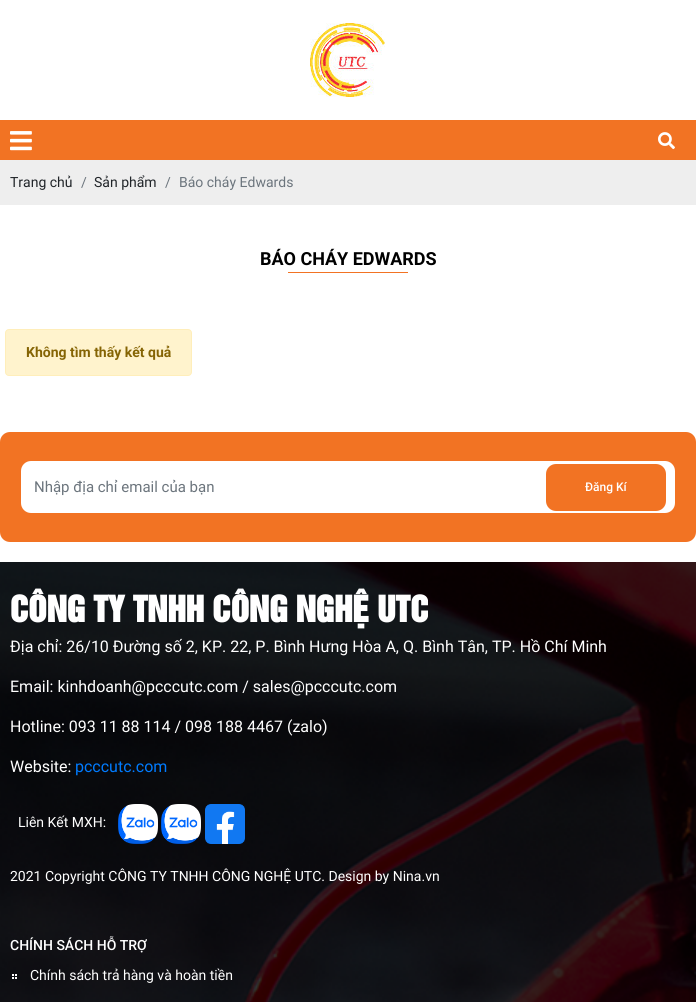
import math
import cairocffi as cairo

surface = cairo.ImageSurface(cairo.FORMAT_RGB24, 696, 1002)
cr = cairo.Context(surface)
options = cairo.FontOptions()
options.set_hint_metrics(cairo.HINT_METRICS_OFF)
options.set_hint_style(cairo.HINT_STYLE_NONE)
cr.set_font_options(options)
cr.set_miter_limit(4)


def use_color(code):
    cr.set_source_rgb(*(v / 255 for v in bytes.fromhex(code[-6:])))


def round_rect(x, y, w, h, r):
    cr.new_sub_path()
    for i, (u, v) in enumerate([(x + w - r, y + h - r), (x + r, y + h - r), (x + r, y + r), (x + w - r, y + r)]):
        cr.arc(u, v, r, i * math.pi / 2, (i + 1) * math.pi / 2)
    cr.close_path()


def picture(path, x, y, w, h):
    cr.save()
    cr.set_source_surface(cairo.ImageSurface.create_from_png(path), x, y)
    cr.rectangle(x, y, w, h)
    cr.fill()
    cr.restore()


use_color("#ffffff")
cr.paint()
picture("img1.png", 310, 23, 75, 74)
use_color("#f27323")
cr.rectangle(0, 120, 696, 40)
cr.fill()
picture("img2.png", 10, 131, 22, 20)
picture("img3.png", 658, 132, 17, 18)
use_color("#eeeeee")
cr.rectangle(0, 160, 696, 45)
cr.fill()
cr.select_font_face("Roboto")
cr.set_font_size(14)
use_color("#212529")
cr.move_to(10, 187)
cr.show_text("Trang chủ")
use_color("#6c757d")
cr.move_to(81, 187)
cr.show_text("/")
use_color("#212529")
cr.move_to(94, 187)
cr.show_text("Sản phẩm")
use_color("#6c757d")
cr.move_to(165, 187)
cr.show_text("/")
cr.move_to(179, 187)
cr.show_text("Báo cháy Edwards")
cr.select_font_face("Roboto", cairo.FONT_SLANT_NORMAL, cairo.FONT_WEIGHT_BOLD)
cr.set_font_size(18)
use_color("#000000")
cr.move_to(260, 265)
cr.show_text("BÁO CHÁY EDWARDS")
use_color("#f27323")
cr.rectangle(288, 272, 120, 1)
cr.fill()
use_color("#fff3cd")
round_rect(5.5, 329.5, 186, 46, 3.5)
cr.fill_preserve()
use_color("#ffeeba")
cr.set_line_width(1)
cr.stroke()
cr.set_font_size(14)
use_color("#856404")
cr.move_to(26, 357)
cr.show_text("Không tìm thấy kết quả")
use_color("#f27323")
round_rect(0, 432, 696, 110, 10)
cr.fill()
use_color("#ffffff")
round_rect(21, 461, 654, 52, 10)
cr.fill()
cr.select_font_face("Roboto")
cr.set_font_size(15)
use_color("#6c757d")
cr.move_to(34, 492)
cr.show_text("Nhập địa chỉ email của bạn")
use_color("#f27323")
round_rect(546, 464, 120, 47, 10)
cr.fill()
cr.select_font_face("Roboto Medium")
cr.set_font_size(12)
use_color("#ffffff")
cr.move_to(585, 491)
cr.show_text("Đăng Kí")
picture("img4.png", 0, 562, 696, 440)
cr.select_font_face("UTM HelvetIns", cairo.FONT_SLANT_NORMAL, cairo.FONT_WEIGHT_BOLD)
cr.set_font_size(33)
cr.move_to(10, 622)
cr.show_text("CÔNG TY TNHH CÔNG NGHỆ UTC")
cr.select_font_face("Roboto")
cr.set_font_size(16)
cr.move_to(10, 652)
cr.show_text("Địa chỉ: 26/10 Đường số 2, KP. 22, P. Bình Hưng Hòa A, Q. Bình Tân, TP. Hồ Chí Minh")
cr.move_to(10, 692)
cr.show_text("Email: kinhdoanh@pcccutc.com / sales@pcccutc.com")
cr.move_to(10, 732)
cr.show_text("Hotline: 093 11 88 114 / 098 188 4467 (zalo)")
cr.move_to(10, 772)
cr.show_text("Website:")
use_color("#007bff")
cr.move_to(75, 772)
cr.show_text("pcccutc.com")
cr.set_font_size(14)
use_color("#ffffff")
cr.move_to(18, 827)
cr.show_text("Liên Kết MXH:")
picture("img5.png", 118, 804, 40, 40)
picture("img6.png", 161, 804, 40, 40)
picture("img7.png", 205, 804, 40, 40)
cr.move_to(10, 881)
cr.show_text("2021 Copyright CÔNG TY TNHH CÔNG NGHỆ UTC. Design by Nina.vn")
cr.select_font_face("Roboto Medium")
cr.move_to(10, 950)
cr.show_text("CHÍNH SÁCH HỖ TRỢ")
picture("img8.png", 12, 974, 5, 5)
cr.select_font_face("Roboto")
cr.move_to(30, 980)
cr.show_text("Chính sách trả hàng và hoàn tiền")
surface.write_to_png("result.png")
